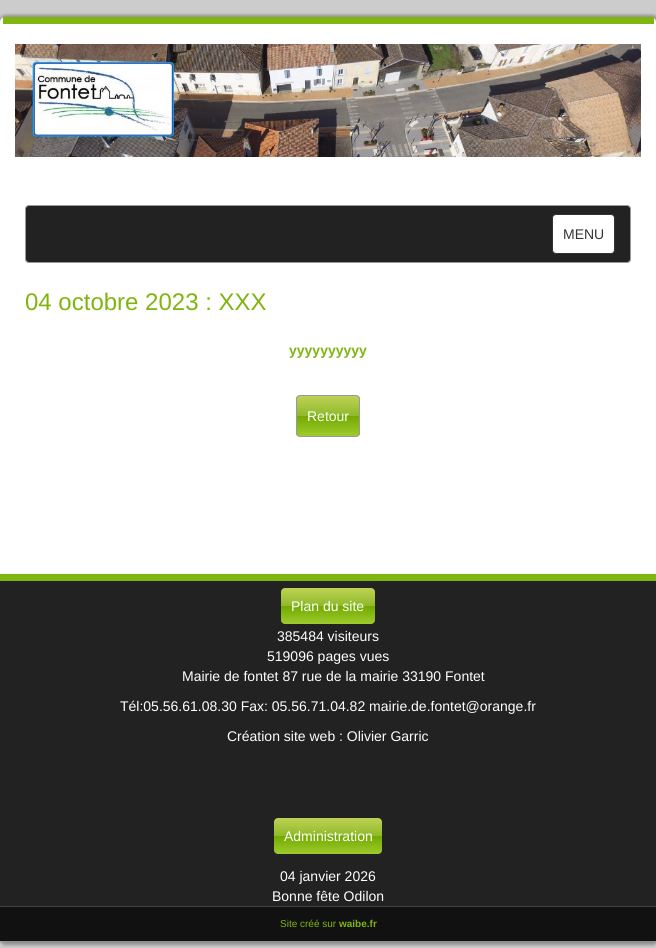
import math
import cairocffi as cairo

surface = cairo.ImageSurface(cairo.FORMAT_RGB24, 656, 948)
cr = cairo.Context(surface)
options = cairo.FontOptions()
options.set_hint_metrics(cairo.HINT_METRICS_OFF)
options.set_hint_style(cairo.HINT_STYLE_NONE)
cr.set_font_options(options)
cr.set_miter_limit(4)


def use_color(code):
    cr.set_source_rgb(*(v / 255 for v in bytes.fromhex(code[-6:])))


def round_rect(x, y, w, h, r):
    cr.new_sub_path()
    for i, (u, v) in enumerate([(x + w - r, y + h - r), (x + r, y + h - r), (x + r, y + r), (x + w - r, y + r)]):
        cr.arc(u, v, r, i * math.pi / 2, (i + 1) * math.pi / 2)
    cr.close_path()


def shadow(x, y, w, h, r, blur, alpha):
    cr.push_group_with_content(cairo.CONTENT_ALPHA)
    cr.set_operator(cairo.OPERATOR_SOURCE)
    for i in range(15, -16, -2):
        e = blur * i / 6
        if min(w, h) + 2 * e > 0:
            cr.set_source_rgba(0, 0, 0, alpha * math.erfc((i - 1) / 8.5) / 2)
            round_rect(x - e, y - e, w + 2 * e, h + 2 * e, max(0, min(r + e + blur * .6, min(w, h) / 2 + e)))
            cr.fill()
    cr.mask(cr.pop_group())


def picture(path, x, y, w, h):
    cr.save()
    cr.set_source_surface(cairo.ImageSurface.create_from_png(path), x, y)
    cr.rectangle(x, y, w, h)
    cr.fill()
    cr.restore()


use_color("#cccccc")
cr.paint()
use_color("#000000")
shadow(-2, 15, 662, 930, 8, 1.5, 0.3)
use_color("#ffffff")
round_rect(0, 17, 656, 924, 5)
cr.fill()
use_color("#80b50f")
cr.rectangle(3, 17, 651, 7)
cr.fill()
picture("img1.png", 15, 44, 626, 113)
use_color("#222222")
round_rect(25.5, 205.5, 605, 57, 3.5)
cr.fill_preserve()
use_color("#999999")
cr.set_line_width(1)
cr.stroke()
use_color("#ffffff")
round_rect(552.5, 214.5, 62, 39, 3.5)
cr.fill_preserve()
use_color("#333333")
cr.stroke()
cr.select_font_face("Liberation Sans")
cr.set_font_size(14)
cr.move_to(563, 239)
cr.show_text("MENU")
cr.set_font_size(24)
use_color("#80b50f")
cr.move_to(25, 310)
cr.show_text("04 octobre 2023 : XXX")
cr.select_font_face("Liberation Sans", cairo.FONT_SLANT_NORMAL, cairo.FONT_WEIGHT_BOLD)
cr.set_font_size(14)
cr.move_to(289, 355)
cr.show_text("yyyyyyyyyy")
cr.save()
round_rect(296, 395, 64, 42, 4)
cr.clip()
gradient = cairo.LinearGradient(328, 396, 328, 436)
gradient.add_color_stop_rgba(0, 0.749, 0.824, 0.333, 1)
gradient.add_color_stop_rgba(0.5, 0.557, 0.725, 0.165, 1)
gradient.add_color_stop_rgba(0.51, 0.447, 0.667, 0, 1)
gradient.add_color_stop_rgba(1, 0.62, 0.796, 0.176, 1)
cr.set_source(gradient)
cr.rectangle(296, 396, 64, 40)
cr.fill()
cr.restore()
round_rect(296.5, 395.5, 63, 41, 3.5)
use_color("#999999")
cr.stroke()
cr.select_font_face("Liberation Sans")
use_color("#ffffff")
cr.move_to(307, 421)
cr.show_text("Retour")
use_color("#222222")
cr.rectangle(0, 581, 656, 325)
cr.fill()
use_color("#80b50f")
cr.rectangle(0, 574, 656, 7)
cr.fill()
gradient = cairo.LinearGradient(328, 588, 328, 624)
gradient.add_color_stop_rgba(0, 0.749, 0.824, 0.333, 1)
gradient.add_color_stop_rgba(0.5, 0.557, 0.725, 0.165, 1)
gradient.add_color_stop_rgba(0.51, 0.447, 0.667, 0, 1)
gradient.add_color_stop_rgba(1, 0.62, 0.796, 0.176, 1)
cr.set_source(gradient)
round_rect(281, 588, 94, 36, 4)
cr.fill()
use_color("#ffffff")
cr.move_to(291, 611)
cr.show_text("Plan du site")
cr.move_to(277, 641)
cr.show_text("385484 visiteurs")
cr.move_to(267, 661)
cr.show_text("519096 pages vues")
cr.move_to(182, 681)
cr.show_text("Mairie de fontet 87 rue de la mairie 33190 Fontet")
cr.move_to(120, 711)
cr.show_text("Tél:05.56.61.08.30 Fax: 05.56.71.04.82 mairie.de.fontet@orange.fr")
cr.move_to(227, 741)
cr.show_text("Création site web : Olivier Garric")
gradient = cairo.LinearGradient(328, 818, 328, 854)
gradient.add_color_stop_rgba(0, 0.749, 0.824, 0.333, 1)
gradient.add_color_stop_rgba(0.5, 0.557, 0.725, 0.165, 1)
gradient.add_color_stop_rgba(0.51, 0.447, 0.667, 0, 1)
gradient.add_color_stop_rgba(1, 0.62, 0.796, 0.176, 1)
cr.set_source(gradient)
round_rect(274, 818, 108, 36, 4)
cr.fill()
use_color("#ffffff")
cr.move_to(284, 841)
cr.show_text("Administration")
cr.move_to(280, 881)
cr.show_text("04 janvier 2026")
cr.move_to(272, 901)
cr.show_text("Bonne fête Odilon")
use_color("#111111")
cr.rectangle(0, 907, 656, 34)
cr.fill()
use_color("#444444")
cr.rectangle(0, 906, 656, 1)
cr.fill()
cr.set_font_size(10)
use_color("#80b50f")
cr.move_to(280, 927)
cr.show_text("Site créé sur")
cr.select_font_face("Liberation Sans", cairo.FONT_SLANT_NORMAL, cairo.FONT_WEIGHT_BOLD)
cr.move_to(339, 927)
cr.show_text("waibe.fr")
surface.write_to_png("result.png")
